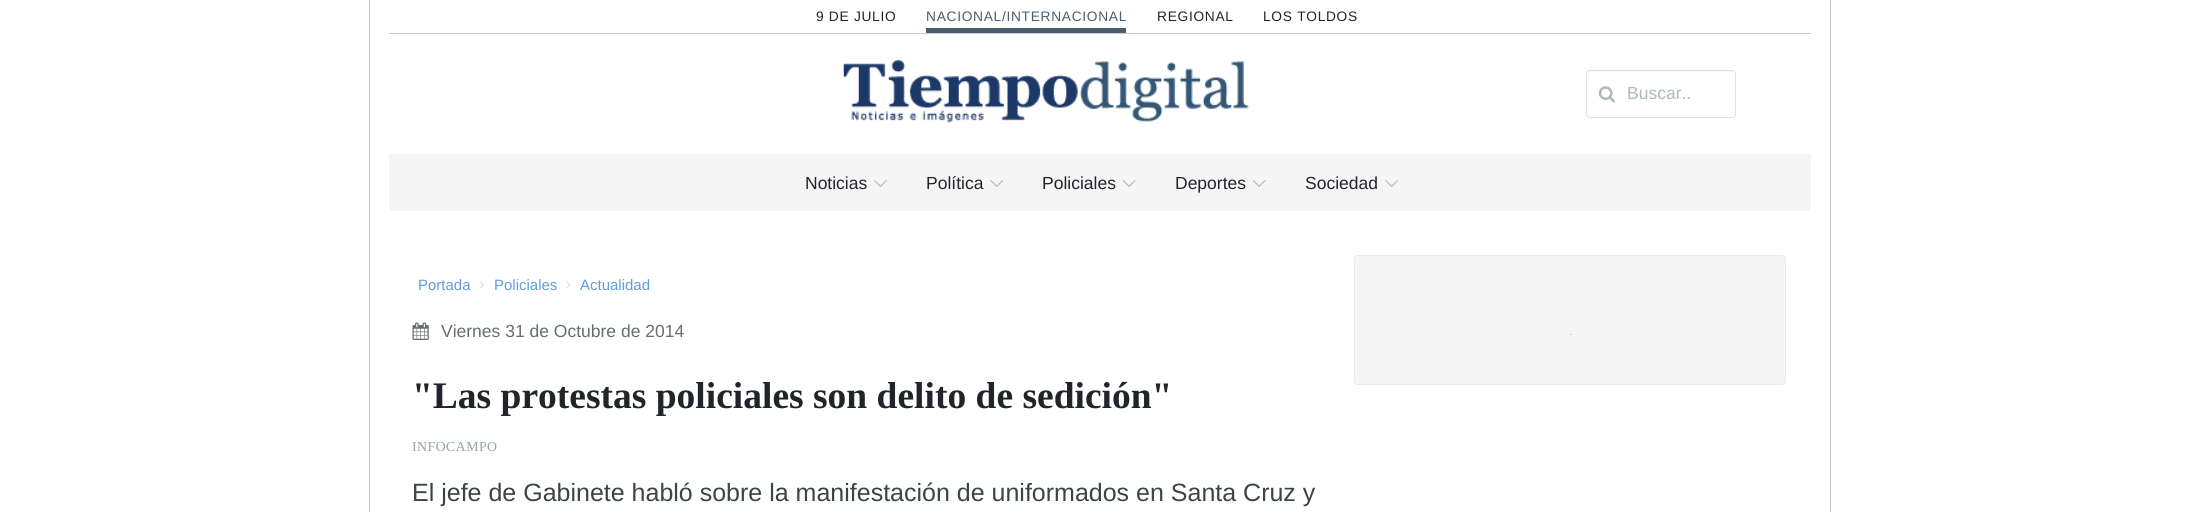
import math
import cairocffi as cairo

surface = cairo.ImageSurface(cairo.FORMAT_RGB24, 2198, 512)
cr = cairo.Context(surface)
options = cairo.FontOptions()
options.set_hint_metrics(cairo.HINT_METRICS_OFF)
options.set_hint_style(cairo.HINT_STYLE_NONE)
cr.set_font_options(options)
cr.set_miter_limit(4)


def use_color(code):
    cr.set_source_rgb(*(v / 255 for v in bytes.fromhex(code[-6:])))


def spaced_text(x, y, s, letter, word):
    cr.move_to(x, y)
    for ch in s:
        cr.show_text(ch)
        cr.rel_move_to(letter + word * (ch == ' '), 0)


def round_rect(x, y, w, h, r):
    cr.new_sub_path()
    for i, (u, v) in enumerate([(x + w - r, y + h - r), (x + r, y + h - r), (x + r, y + r), (x + w - r, y + r)]):
        cr.arc(u, v, r, i * math.pi / 2, (i + 1) * math.pi / 2)
    cr.close_path()


def picture(path, x, y, w, h):
    cr.save()
    cr.set_source_surface(cairo.ImageSurface.create_from_png(path), x, y)
    cr.rectangle(x, y, w, h)
    cr.fill()
    cr.restore()


use_color("#ffffff")
cr.paint()
cr.select_font_face("Liberation Sans")
cr.set_font_size(13.75)
use_color("#21252b")
spaced_text(816, 21, "9 DE JULIO", 0.7, 0)
use_color("#495f6f")
spaced_text(926, 21, "NACIONAL/INTERNACIONAL", 0.7, 0)
cr.rectangle(926, 28, 200, 5)
cr.fill()
use_color("#21252b")
spaced_text(1157, 21, "REGIONAL", 0.7, 0)
spaced_text(1263, 21, "LOS TOLDOS", 0.7, 0)
use_color("#c5ccd2")
cr.rectangle(389, 33, 1422, 1)
cr.fill()
picture("img1.png", 843, 59, 406, 64)
use_color("#f7f7f7")
cr.new_path()
cr.move_to(1590, 72)
cr.line_to(1732, 72)
cr.curve_to(1734, 72, 1735, 74, 1735, 75)
cr.curve_to(1735, 73, 1735, 71, 1733, 71)
cr.line_to(1590, 71)
cr.curve_to(1588, 71, 1588, 73, 1588, 75)
cr.curve_to(1588, 74, 1589, 72, 1590, 72)
cr.close_path()
cr.fill()
round_rect(1586.5, 70.5, 149, 47, 3.5)
use_color("#dde1e1")
cr.set_line_width(1)
cr.stroke()
picture("img2.png", 1598, 86, 17, 17)
cr.set_font_size(17.5)
use_color("#afb8bb")
cr.move_to(1627, 99)
cr.show_text("Buscar..")
use_color("#c5ccd2")
cr.rectangle(1830, 0, 1, 512)
cr.fill()
cr.rectangle(369, 0, 1, 512)
cr.fill()
use_color("#f5f5f6")
cr.rectangle(389, 154, 1422, 57)
cr.fill()
use_color("#21252b")
cr.move_to(805, 189)
cr.show_text("Noticias")
picture("img3.png", 874, 180, 13, 7)
cr.move_to(926, 189)
cr.show_text("Política")
picture("img4.png", 990, 180, 13, 7)
cr.move_to(1042, 189)
cr.show_text("Policiales")
picture("img5.png", 1122, 180, 14, 7)
cr.move_to(1175, 189)
cr.show_text("Deportes")
picture("img5.png", 1252, 180, 14, 7)
cr.move_to(1305, 189)
cr.show_text("Sociedad")
picture("img4.png", 1385, 180, 13, 7)
cr.set_font_size(15)
use_color("#609ddb")
cr.move_to(418, 290)
cr.show_text("Portada")
picture("img6.png", 480, 281, 4, 7)
cr.move_to(494, 290)
cr.show_text("Policiales")
picture("img7.png", 566, 281, 5, 7)
cr.move_to(580, 290)
cr.show_text("Actualidad")
picture("img8.png", 412, 322, 17, 18)
cr.set_font_size(17.5)
use_color("#666e70")
cr.move_to(441, 337)
cr.show_text("Viernes 31 de Octubre de 2014")
cr.select_font_face("Liberation Serif", cairo.FONT_SLANT_NORMAL, cairo.FONT_WEIGHT_BOLD)
cr.set_font_size(37.5)
use_color("#21252b")
cr.move_to(412, 408)
cr.show_text("\"Las protestas policiales son delito de sedición\"")
cr.select_font_face("Liberation Serif")
cr.set_font_size(13.75)
use_color("#96a2a4")
spaced_text(412, 451, "INFOCAMPO", 0.5, 0)
cr.select_font_face("Liberation Sans")
cr.set_font_size(25)
use_color("#3c4446")
cr.move_to(412, 501)
cr.show_text("El jefe de Gabinete habló sobre la manifestación de uniformados en Santa Cruz y")
use_color("#f5f5f6")
round_rect(1354.5, 255.5, 431, 129, 3.5)
cr.fill_preserve()
use_color("#e5eaea")
cr.stroke()
picture("img9.png", 1570, 333, 2, 2)
surface.write_to_png("result.png")
